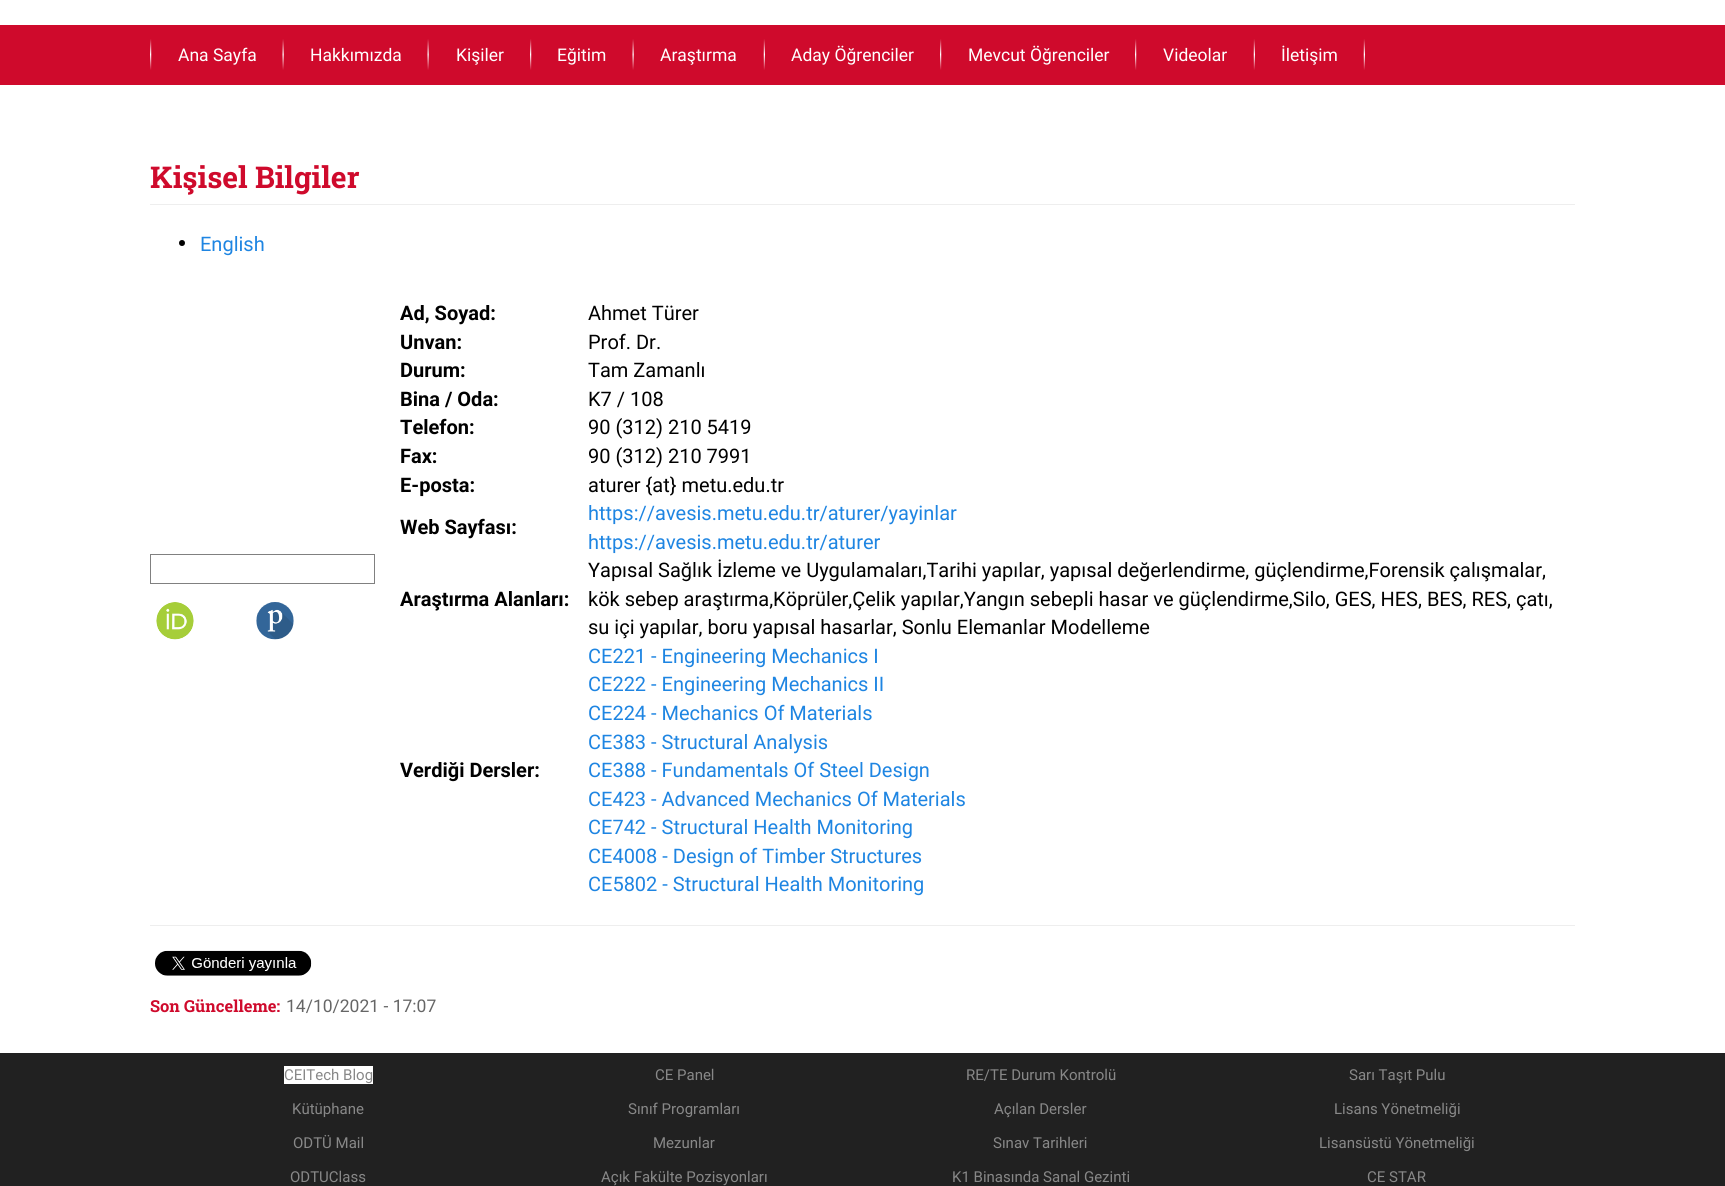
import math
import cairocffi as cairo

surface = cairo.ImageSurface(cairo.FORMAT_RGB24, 1725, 1186)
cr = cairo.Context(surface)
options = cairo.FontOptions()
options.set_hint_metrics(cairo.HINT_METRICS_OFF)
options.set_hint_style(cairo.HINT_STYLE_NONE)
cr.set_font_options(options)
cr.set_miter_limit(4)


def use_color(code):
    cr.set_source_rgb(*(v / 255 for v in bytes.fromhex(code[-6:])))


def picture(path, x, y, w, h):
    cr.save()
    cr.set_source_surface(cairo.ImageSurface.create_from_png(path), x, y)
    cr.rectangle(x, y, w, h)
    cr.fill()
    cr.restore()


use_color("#ffffff")
cr.paint()
use_color("#cf0a2c")
cr.rectangle(0, 25, 1725, 60)
cr.fill()
picture("img1.png", 150, 39, 134, 31)
cr.select_font_face("Roboto")
cr.set_font_size(17.5)
use_color("#ffffff")
cr.move_to(178, 61)
cr.show_text("Ana Sayfa")
picture("img2.png", 427, 39, 2, 31)
cr.move_to(310, 61)
cr.show_text("Hakkımızda")
picture("img3.png", 530, 39, 2, 31)
cr.move_to(456, 61)
cr.show_text("Kişiler")
picture("img4.png", 632, 39, 2, 31)
cr.move_to(557, 61)
cr.show_text("Eğitim")
picture("img5.png", 763, 39, 2, 31)
cr.move_to(660, 61)
cr.show_text("Araştırma")
picture("img3.png", 940, 39, 2, 31)
cr.move_to(791, 61)
cr.show_text("Aday Öğrenciler")
picture("img6.png", 1135, 39, 2, 31)
cr.move_to(968, 61)
cr.show_text("Mevcut Öğrenciler")
picture("img5.png", 1253, 39, 2, 31)
cr.move_to(1163, 61)
cr.show_text("Videolar")
picture("img5.png", 1363, 39, 2, 31)
cr.move_to(1281, 61)
cr.show_text("İletişim")
use_color("#eeeeee")
cr.rectangle(150, 204, 1425, 1)
cr.fill()
cr.select_font_face("Roboto Slab", cairo.FONT_SLANT_NORMAL, cairo.FONT_WEIGHT_BOLD)
cr.set_font_size(30)
use_color("#cf0a2c")
cr.move_to(150, 188)
cr.show_text("Kişisel Bilgiler")
use_color("#000000")
cr.new_path()
cr.arc(182, 243, 3, 0, 2 * math.pi)
cr.fill()
cr.select_font_face("Roboto")
cr.set_font_size(20)
use_color("#1e85e2")
cr.move_to(200, 251)
cr.show_text("English")
cr.rectangle(150.5, 554.5, 224, 29)
use_color("#808080")
cr.set_line_width(1)
cr.stroke()
picture("img7.png", 156, 602, 38, 38)
picture("img8.png", 256, 602, 38, 38)
cr.select_font_face("Roboto", cairo.FONT_SLANT_NORMAL, cairo.FONT_WEIGHT_BOLD)
use_color("#000000")
cr.move_to(400, 320)
cr.show_text("Ad, Soyad:")
cr.select_font_face("Roboto")
cr.move_to(588, 320)
cr.show_text("Ahmet Türer")
cr.select_font_face("Roboto", cairo.FONT_SLANT_NORMAL, cairo.FONT_WEIGHT_BOLD)
cr.move_to(400, 349)
cr.show_text("Unvan:")
cr.select_font_face("Roboto")
cr.move_to(588, 349)
cr.show_text("Prof. Dr.")
cr.select_font_face("Roboto", cairo.FONT_SLANT_NORMAL, cairo.FONT_WEIGHT_BOLD)
cr.move_to(400, 377)
cr.show_text("Durum:")
cr.select_font_face("Roboto")
cr.move_to(588, 377)
cr.show_text("Tam Zamanlı")
cr.select_font_face("Roboto", cairo.FONT_SLANT_NORMAL, cairo.FONT_WEIGHT_BOLD)
cr.move_to(400, 406)
cr.show_text("Bina / Oda:")
cr.select_font_face("Roboto")
cr.move_to(588, 406)
cr.show_text("K7 / 108")
cr.select_font_face("Roboto", cairo.FONT_SLANT_NORMAL, cairo.FONT_WEIGHT_BOLD)
cr.move_to(400, 434)
cr.show_text("Telefon:")
cr.select_font_face("Roboto")
cr.move_to(588, 434)
cr.show_text("90 (312) 210 5419")
cr.select_font_face("Roboto", cairo.FONT_SLANT_NORMAL, cairo.FONT_WEIGHT_BOLD)
cr.move_to(400, 463)
cr.show_text("Fax:")
cr.select_font_face("Roboto")
cr.move_to(588, 463)
cr.show_text("90 (312) 210 7991")
cr.select_font_face("Roboto", cairo.FONT_SLANT_NORMAL, cairo.FONT_WEIGHT_BOLD)
cr.move_to(400, 492)
cr.show_text("E-posta:")
cr.select_font_face("Roboto")
cr.move_to(588, 492)
cr.show_text("aturer {at} metu.edu.tr")
cr.select_font_face("Roboto", cairo.FONT_SLANT_NORMAL, cairo.FONT_WEIGHT_BOLD)
cr.move_to(400, 534)
cr.show_text("Web Sayfası:")
cr.select_font_face("Roboto")
use_color("#1e85e2")
cr.move_to(588, 520)
cr.show_text("https://avesis.metu.edu.tr/aturer/yayinlar")
cr.move_to(588, 549)
cr.show_text("https://avesis.metu.edu.tr/aturer")
cr.select_font_face("Roboto", cairo.FONT_SLANT_NORMAL, cairo.FONT_WEIGHT_BOLD)
use_color("#000000")
cr.move_to(400, 606)
cr.show_text("Araştırma Alanları:")
cr.select_font_face("Roboto")
cr.move_to(588, 577)
cr.show_text("Yapısal Sağlık İzleme ve Uygulamaları,Tarihi yapılar, yapısal değerlendirme, güçlendirme,Forensik çalışmalar,")
cr.move_to(588, 606)
cr.show_text("kök sebep araştırma,Köprüler,Çelik yapılar,Yangın sebepli hasar ve güçlendirme,Silo, GES, HES, BES, RES, çatı,")
cr.move_to(588, 634)
cr.show_text("su içi yapılar, boru yapısal hasarlar, Sonlu Elemanlar Modelleme")
cr.select_font_face("Roboto", cairo.FONT_SLANT_NORMAL, cairo.FONT_WEIGHT_BOLD)
cr.move_to(400, 777)
cr.show_text("Verdiği Dersler:")
cr.select_font_face("Roboto")
use_color("#1e85e2")
cr.move_to(588, 663)
cr.show_text("CE221 - Engineering Mechanics I")
cr.move_to(588, 691)
cr.show_text("CE222 - Engineering Mechanics II")
cr.move_to(588, 720)
cr.show_text("CE224 - Mechanics Of Materials")
cr.move_to(588, 749)
cr.show_text("CE383 - Structural Analysis")
cr.move_to(588, 777)
cr.show_text("CE388 - Fundamentals Of Steel Design")
cr.move_to(588, 806)
cr.show_text("CE423 - Advanced Mechanics Of Materials")
cr.move_to(588, 834)
cr.show_text("CE742 - Structural Health Monitoring")
cr.move_to(588, 863)
cr.show_text("CE4008 - Design of Timber Structures")
cr.move_to(588, 891)
cr.show_text("CE5802 - Structural Health Monitoring")
use_color("#eeeeee")
cr.rectangle(150, 925, 1425, 1)
cr.fill()
picture("img9.png", 155, 950, 157, 26)
cr.select_font_face("Roboto Slab", cairo.FONT_SLANT_NORMAL, cairo.FONT_WEIGHT_BOLD)
cr.set_font_size(16.5)
use_color("#cf0a2c")
cr.move_to(150, 1012)
cr.show_text("Son Güncelleme:")
cr.select_font_face("Roboto")
cr.set_font_size(17.5)
use_color("#666666")
cr.move_to(286, 1012)
cr.show_text("14/10/2021 - 17:07")
use_color("#212121")
cr.rectangle(0, 1053, 1725, 133)
cr.fill()
use_color("#ffffff")
cr.rectangle(284, 1066, 89, 18)
cr.fill()
cr.set_font_size(15)
use_color("#888888")
cr.move_to(284, 1080)
cr.show_text("CEITech Blog")
cr.move_to(292, 1114)
cr.show_text("Kütüphane")
cr.move_to(293, 1148)
cr.show_text("ODTÜ Mail")
cr.move_to(290, 1182)
cr.show_text("ODTUClass")
cr.move_to(655, 1080)
cr.show_text("CE Panel")
cr.move_to(628, 1114)
cr.show_text("Sınıf Programları")
cr.move_to(653, 1148)
cr.show_text("Mezunlar")
cr.move_to(601, 1182)
cr.show_text("Açık Fakülte Pozisyonları")
cr.move_to(966, 1080)
cr.show_text("RE/TE Durum Kontrolü")
cr.move_to(994, 1114)
cr.show_text("Açılan Dersler")
cr.move_to(993, 1148)
cr.show_text("Sınav Tarihleri")
cr.move_to(952, 1182)
cr.show_text("K1 Binasında Sanal Gezinti")
cr.move_to(1349, 1080)
cr.show_text("Sarı Taşıt Pulu")
cr.move_to(1334, 1114)
cr.show_text("Lisans Yönetmeliği")
cr.move_to(1319, 1148)
cr.show_text("Lisansüstü Yönetmeliği")
cr.move_to(1367, 1182)
cr.show_text("CE STAR")
surface.write_to_png("result.png")
